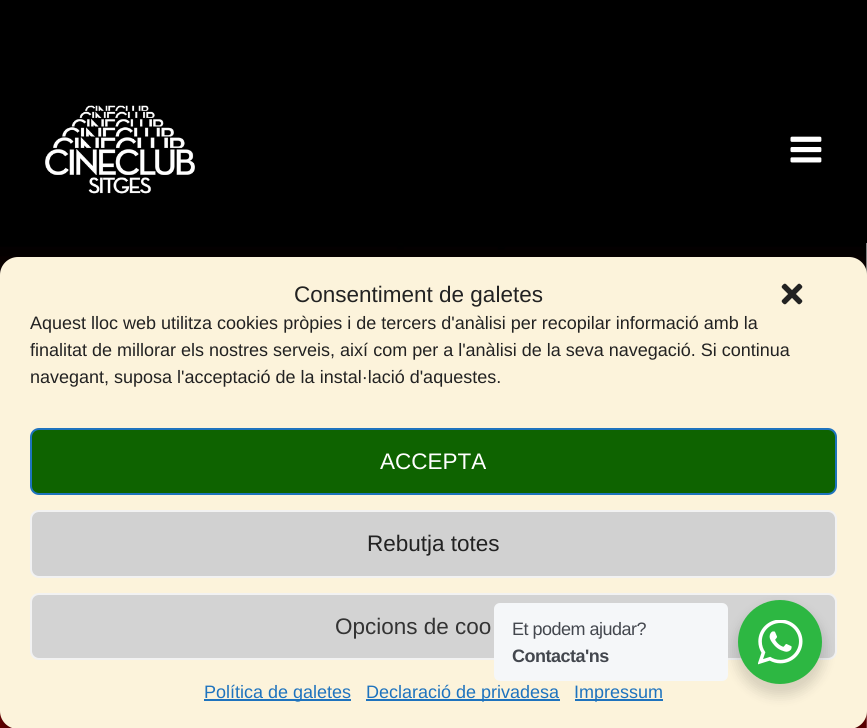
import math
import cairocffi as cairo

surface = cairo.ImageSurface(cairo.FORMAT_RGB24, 867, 728)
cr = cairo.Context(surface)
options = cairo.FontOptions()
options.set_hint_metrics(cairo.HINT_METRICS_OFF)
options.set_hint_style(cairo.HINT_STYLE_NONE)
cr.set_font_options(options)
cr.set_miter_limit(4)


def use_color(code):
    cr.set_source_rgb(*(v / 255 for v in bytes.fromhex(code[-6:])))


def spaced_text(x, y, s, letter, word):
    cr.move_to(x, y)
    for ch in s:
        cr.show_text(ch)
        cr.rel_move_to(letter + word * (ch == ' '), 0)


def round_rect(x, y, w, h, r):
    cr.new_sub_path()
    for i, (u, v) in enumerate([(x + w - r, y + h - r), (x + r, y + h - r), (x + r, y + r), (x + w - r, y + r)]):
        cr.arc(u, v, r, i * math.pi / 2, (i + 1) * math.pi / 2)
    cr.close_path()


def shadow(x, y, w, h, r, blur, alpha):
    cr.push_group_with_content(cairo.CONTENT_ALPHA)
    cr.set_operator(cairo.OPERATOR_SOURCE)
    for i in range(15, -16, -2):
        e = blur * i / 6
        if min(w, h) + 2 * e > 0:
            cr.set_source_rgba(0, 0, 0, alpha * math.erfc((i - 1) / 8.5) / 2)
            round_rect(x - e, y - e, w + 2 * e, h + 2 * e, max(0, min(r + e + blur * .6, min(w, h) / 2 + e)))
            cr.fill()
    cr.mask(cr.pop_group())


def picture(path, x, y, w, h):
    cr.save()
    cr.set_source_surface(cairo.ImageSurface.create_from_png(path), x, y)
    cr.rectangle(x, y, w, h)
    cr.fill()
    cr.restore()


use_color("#000000")
cr.paint()
picture("img4.png", 0, 243, 867, 485)
shadow(0, 266, 867, 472, 18, 4.5, 0.23)
shadow(0, 272, 867, 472, 18, 15, 0.19)
use_color("#fcf3db")
round_rect(0, 257, 867, 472, 18)
cr.fill()
cr.select_font_face("Liberation Sans")
cr.set_font_size(22.5)
use_color("#222222")
cr.move_to(294, 302)
cr.show_text("Consentiment de galetes")
picture("img1.png", 781, 283, 22, 22)
cr.set_font_size(18)
cr.move_to(30, 329)
cr.show_text("Aquest lloc web utilitza cookies pròpies i de tercers d'anàlisi per recopilar informació amb la")
cr.move_to(30, 356)
cr.show_text("finalitat de millorar els nostres serveis, així com per a l'anàlisi de la seva navegació. Si continua")
cr.move_to(30, 383)
cr.show_text("navegant, suposa l'acceptació de la instal·lació d'aquestes.")
use_color("#0e6300")
round_rect(31, 429, 805, 65, 8)
cr.fill_preserve()
use_color("#1e73be")
cr.stroke()
cr.set_font_size(22.5)
use_color("#ffffff")
cr.move_to(380, 469)
cr.show_text("ACCEPTA")
use_color("#d1d1d1")
round_rect(31, 511, 805, 66, 8)
cr.fill_preserve()
use_color("#f2f2f2")
cr.stroke()
use_color("#222222")
cr.move_to(367, 551)
cr.show_text("Rebutja totes")
use_color("#d3d3d3")
round_rect(31, 594, 805, 65, 8)
cr.fill_preserve()
use_color("#f2f2f2")
cr.stroke()
use_color("#333333")
cr.move_to(335, 634)
cr.show_text("Opcions de coo")
use_color("#1e73be")
cr.rectangle(204, 699, 147, 2)
cr.fill()
cr.set_font_size(18)
cr.move_to(204, 698)
cr.show_text("Política de galetes")
cr.rectangle(366, 699, 194, 2)
cr.fill()
cr.move_to(366, 698)
cr.show_text("Declaració de privadesa")
cr.rectangle(575, 699, 88, 2)
cr.fill()
cr.move_to(574, 698)
cr.show_text("Impressum")
picture("img2.png", 45, 105, 150, 89)
picture("img3.png", 790, 136, 32, 27)
use_color("#000000")
shadow(735, 606, 90, 90, 45, 6, 0.14)
use_color("#f5f7f9")
round_rect(494, 603, 234, 78, 6)
cr.fill()
use_color("#43474e")
spaced_text(512, 635, "Et podem ajudar?", -0.5, 0)
cr.select_font_face("Liberation Sans", cairo.FONT_SLANT_NORMAL, cairo.FONT_WEIGHT_BOLD)
spaced_text(512, 662, "Contacta'ns", -0.5, 0)
use_color("#2db742")
cr.new_path()
cr.arc(780, 642, 42, 0, 2 * math.pi)
cr.fill()
picture("img5.png", 758, 620, 45, 45)
surface.write_to_png("result.png")
